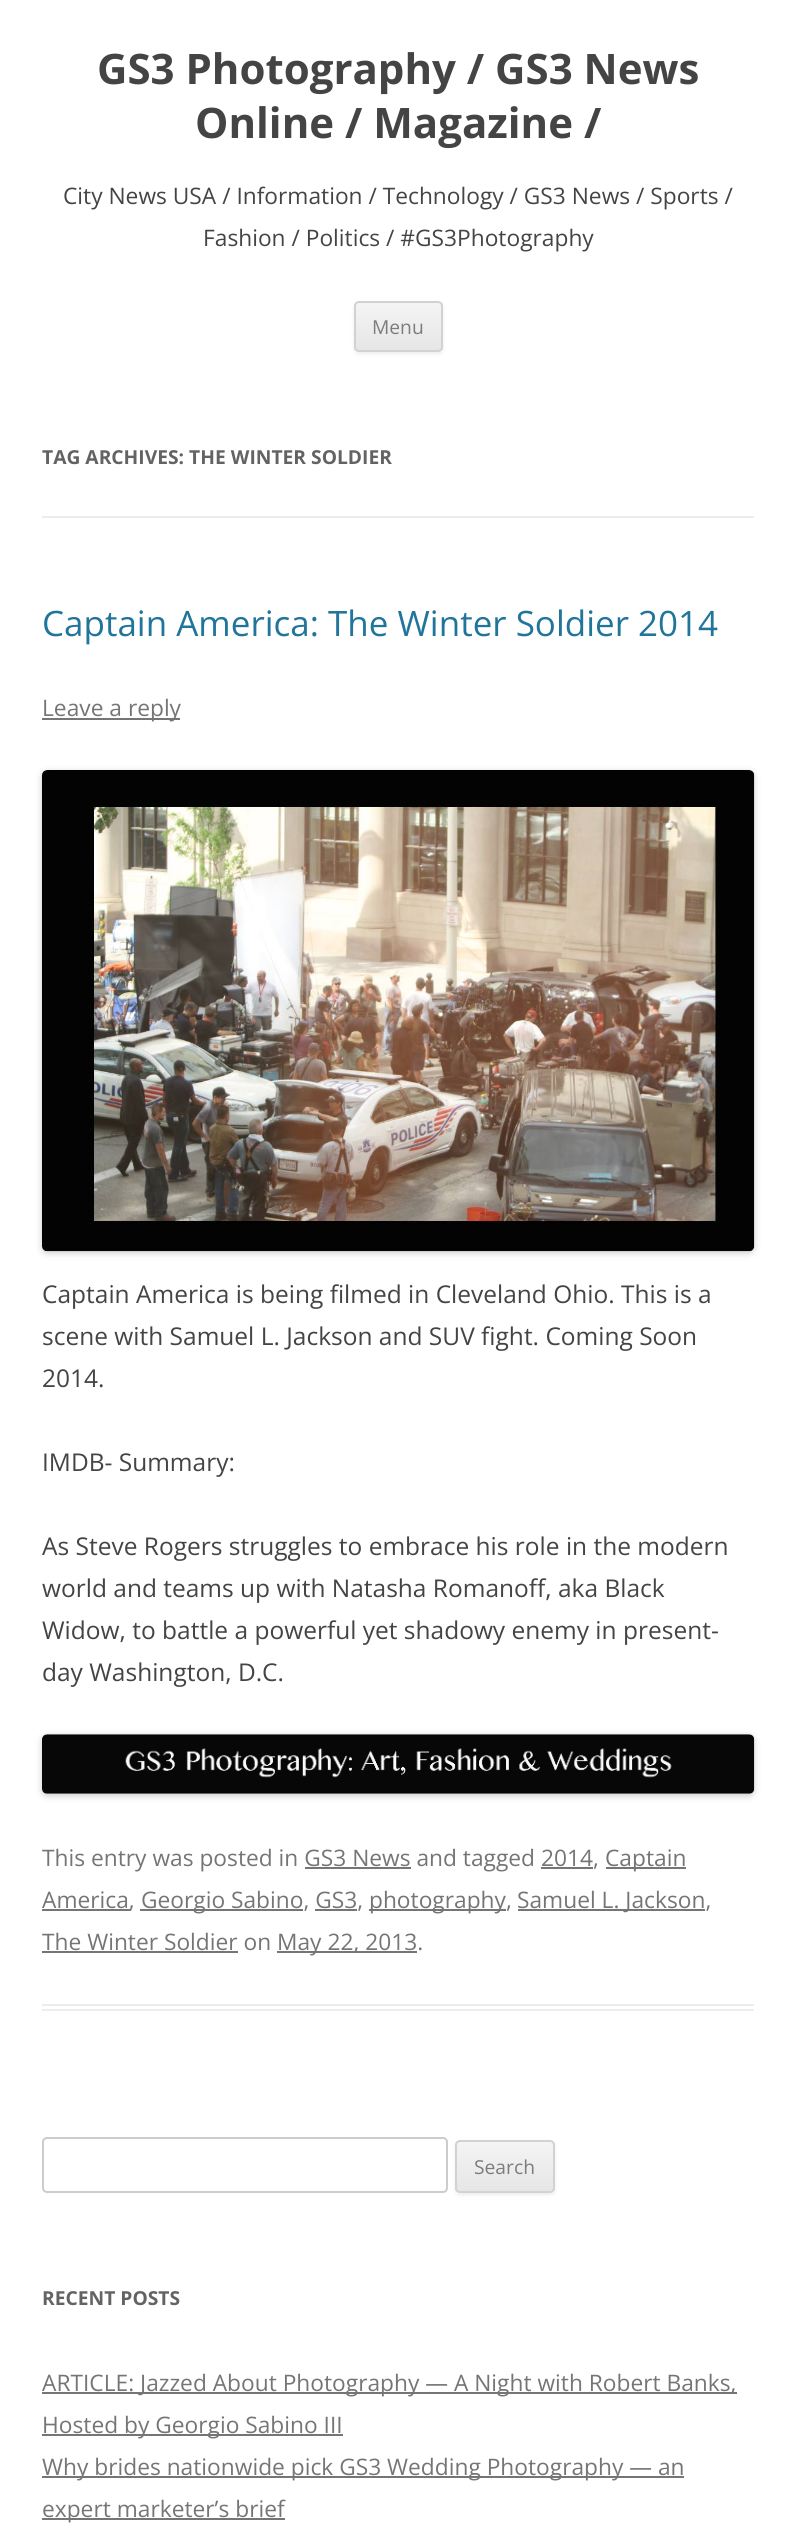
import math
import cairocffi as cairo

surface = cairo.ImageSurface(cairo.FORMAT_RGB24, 796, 2536)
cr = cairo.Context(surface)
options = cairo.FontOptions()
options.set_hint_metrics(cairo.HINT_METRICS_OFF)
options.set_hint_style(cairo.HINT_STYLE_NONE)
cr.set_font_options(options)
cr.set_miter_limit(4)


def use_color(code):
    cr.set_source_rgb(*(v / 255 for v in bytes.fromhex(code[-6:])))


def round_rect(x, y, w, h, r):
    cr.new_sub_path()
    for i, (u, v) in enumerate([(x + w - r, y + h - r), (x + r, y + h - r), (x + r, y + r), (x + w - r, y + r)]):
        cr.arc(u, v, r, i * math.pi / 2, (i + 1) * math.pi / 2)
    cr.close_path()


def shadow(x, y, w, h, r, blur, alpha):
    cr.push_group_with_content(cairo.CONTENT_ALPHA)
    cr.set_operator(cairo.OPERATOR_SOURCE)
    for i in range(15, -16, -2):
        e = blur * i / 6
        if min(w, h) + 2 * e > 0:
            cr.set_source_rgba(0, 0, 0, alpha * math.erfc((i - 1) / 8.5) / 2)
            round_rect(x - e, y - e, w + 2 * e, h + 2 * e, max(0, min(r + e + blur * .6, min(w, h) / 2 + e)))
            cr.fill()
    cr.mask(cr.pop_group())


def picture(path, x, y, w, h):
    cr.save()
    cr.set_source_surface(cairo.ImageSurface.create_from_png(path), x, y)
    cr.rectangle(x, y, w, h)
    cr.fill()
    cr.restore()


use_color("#ffffff")
cr.paint()
cr.select_font_face("Open Sans", cairo.FONT_SLANT_NORMAL, cairo.FONT_WEIGHT_BOLD)
cr.set_font_size(42)
use_color("#444444")
cr.move_to(97, 84)
cr.show_text("GS3 Photography / GS3 News")
cr.move_to(195, 138)
cr.show_text("Online / Magazine /")
cr.select_font_face("Open Sans")
cr.set_font_size(22.75)
cr.move_to(63, 204)
cr.show_text("City News USA / Information / Technology / GS3 News / Sports /")
cr.move_to(203, 246)
cr.show_text("Fashion / Politics / #GS3Photography")
use_color("#404040")
shadow(354, 303, 89, 51, 5, 2, 0.1)
cr.save()
round_rect(354, 301, 89, 51, 5)
cr.clip()
gradient = cairo.LinearGradient(398, 303, 398, 350)
gradient.add_color_stop_rgba(0, 0.957, 0.957, 0.957, 1)
gradient.add_color_stop_rgba(1, 0.902, 0.902, 0.902, 1)
cr.set_source(gradient)
cr.rectangle(354, 303, 89, 47)
cr.fill()
cr.restore()
round_rect(355, 302, 87, 49, 4)
use_color("#d2d2d2")
cr.stroke()
cr.set_font_size(19.25)
use_color("#7c7c7c")
cr.move_to(372, 334)
cr.show_text("Menu")
use_color("#ededed")
cr.rectangle(42, 516, 712, 2)
cr.fill()
cr.select_font_face("Open Sans", cairo.FONT_SLANT_NORMAL, cairo.FONT_WEIGHT_BOLD)
use_color("#636363")
cr.move_to(42, 464)
cr.show_text("TAG ARCHIVES: THE WINTER SOLDIER")
use_color("#ededed")
cr.rectangle(42, 2004, 712, 2)
cr.fill()
cr.rectangle(42, 2009, 712, 2)
cr.fill()
cr.select_font_face("Open Sans")
cr.set_font_size(35)
use_color("#21759b")
cr.move_to(42, 636)
cr.show_text("Captain America: The Winter Soldier 2014")
use_color("#757575")
cr.rectangle(42, 718, 138, 2)
cr.fill()
cr.set_font_size(22.75)
cr.move_to(42, 716)
cr.show_text("Leave a reply")
use_color("#000000")
shadow(42, 772, 712, 481, 5, 3.5, 0.2)
picture("img1.png", 42, 770, 713, 482)
cr.set_font_size(24.5)
use_color("#444444")
cr.move_to(42, 1303)
cr.show_text("Captain America is being filmed in Cleveland Ohio. This is a")
cr.move_to(42, 1345)
cr.show_text("scene with Samuel L. Jackson and SUV fight. Coming Soon")
cr.move_to(42, 1387)
cr.show_text("2014.")
cr.move_to(42, 1471)
cr.show_text("IMDB- Summary:")
cr.move_to(42, 1555)
cr.show_text("As Steve Rogers struggles to embrace his role in the modern")
cr.move_to(42, 1597)
cr.show_text("world and teams up with Natasha Romanoff, aka Black")
cr.move_to(42, 1639)
cr.show_text("Widow, to battle a powerful yet shadowy enemy in present-")
cr.move_to(42, 1681)
cr.show_text("day Washington, D.C.")
use_color("#000000")
shadow(42, 1736, 712, 60, 5, 3.5, 0.2)
picture("img2.png", 42, 1734, 713, 60)
cr.set_font_size(22.75)
use_color("#757575")
cr.move_to(42, 1866)
cr.show_text("This entry was posted in GS3 News and tagged 2014,")
cr.rectangle(606, 1867, 80, 2)
cr.fill()
cr.move_to(605, 1866)
cr.show_text("Captain")
cr.rectangle(305, 1867, 106, 2)
cr.fill()
cr.rectangle(541, 1867, 52, 2)
cr.fill()
cr.rectangle(42, 1909, 88, 2)
cr.fill()
cr.move_to(42, 1908)
cr.show_text("America,")
cr.rectangle(140, 1909, 163, 2)
cr.fill()
cr.move_to(141, 1908)
cr.show_text("Georgio Sabino, GS3,")
cr.rectangle(369, 1909, 137, 2)
cr.fill()
cr.move_to(369, 1908)
cr.show_text("photography,")
cr.rectangle(518, 1909, 187, 2)
cr.fill()
cr.move_to(517, 1908)
cr.show_text("Samuel L. Jackson,")
cr.rectangle(315, 1909, 42, 2)
cr.fill()
cr.move_to(42, 1950)
cr.show_text("The Winter Soldier on")
cr.rectangle(42, 1951, 196, 2)
cr.fill()
cr.rectangle(277, 1951, 140, 2)
cr.fill()
cr.move_to(277, 1950)
cr.show_text("May 22, 2013.")
round_rect(43, 2138, 404, 54, 4)
use_color("#cccccc")
cr.stroke()
use_color("#404040")
shadow(455, 2142, 100, 53, 5, 2, 0.1)
cr.save()
round_rect(455, 2140, 100, 53, 5)
cr.clip()
gradient = cairo.LinearGradient(505, 2142, 505, 2191)
gradient.add_color_stop_rgba(0, 0.957, 0.957, 0.957, 1)
gradient.add_color_stop_rgba(1, 0.902, 0.902, 0.902, 1)
cr.set_source(gradient)
cr.rectangle(455, 2142, 100, 49)
cr.fill()
cr.restore()
round_rect(456, 2141, 98, 51, 4)
use_color("#d2d2d2")
cr.stroke()
cr.set_font_size(19.25)
use_color("#7c7c7c")
cr.move_to(474, 2174)
cr.show_text("Search")
cr.select_font_face("Open Sans", cairo.FONT_SLANT_NORMAL, cairo.FONT_WEIGHT_BOLD)
use_color("#636363")
cr.move_to(42, 2305)
cr.show_text("RECENT POSTS")
use_color("#757575")
cr.rectangle(42, 2392, 695, 2)
cr.fill()
cr.select_font_face("Open Sans")
cr.set_font_size(22.75)
cr.move_to(42, 2391)
cr.show_text("ARTICLE: Jazzed About Photography — A Night with Robert Banks,")
cr.rectangle(42, 2434, 301, 2)
cr.fill()
cr.move_to(42, 2433)
cr.show_text("Hosted by Georgio Sabino III")
cr.rectangle(42, 2476, 642, 2)
cr.fill()
cr.move_to(42, 2475)
cr.show_text("Why brides nationwide pick GS3 Wedding Photography — an")
cr.rectangle(42, 2518, 243, 2)
cr.fill()
cr.move_to(42, 2517)
cr.show_text("expert marketer’s brief")
surface.write_to_png("result.png")
